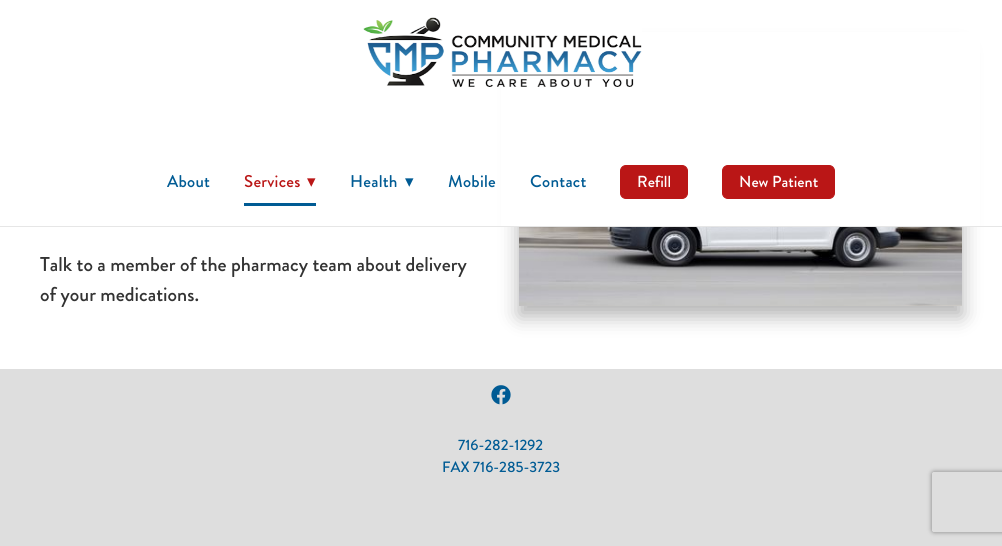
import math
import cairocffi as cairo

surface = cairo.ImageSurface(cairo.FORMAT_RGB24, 1002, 546)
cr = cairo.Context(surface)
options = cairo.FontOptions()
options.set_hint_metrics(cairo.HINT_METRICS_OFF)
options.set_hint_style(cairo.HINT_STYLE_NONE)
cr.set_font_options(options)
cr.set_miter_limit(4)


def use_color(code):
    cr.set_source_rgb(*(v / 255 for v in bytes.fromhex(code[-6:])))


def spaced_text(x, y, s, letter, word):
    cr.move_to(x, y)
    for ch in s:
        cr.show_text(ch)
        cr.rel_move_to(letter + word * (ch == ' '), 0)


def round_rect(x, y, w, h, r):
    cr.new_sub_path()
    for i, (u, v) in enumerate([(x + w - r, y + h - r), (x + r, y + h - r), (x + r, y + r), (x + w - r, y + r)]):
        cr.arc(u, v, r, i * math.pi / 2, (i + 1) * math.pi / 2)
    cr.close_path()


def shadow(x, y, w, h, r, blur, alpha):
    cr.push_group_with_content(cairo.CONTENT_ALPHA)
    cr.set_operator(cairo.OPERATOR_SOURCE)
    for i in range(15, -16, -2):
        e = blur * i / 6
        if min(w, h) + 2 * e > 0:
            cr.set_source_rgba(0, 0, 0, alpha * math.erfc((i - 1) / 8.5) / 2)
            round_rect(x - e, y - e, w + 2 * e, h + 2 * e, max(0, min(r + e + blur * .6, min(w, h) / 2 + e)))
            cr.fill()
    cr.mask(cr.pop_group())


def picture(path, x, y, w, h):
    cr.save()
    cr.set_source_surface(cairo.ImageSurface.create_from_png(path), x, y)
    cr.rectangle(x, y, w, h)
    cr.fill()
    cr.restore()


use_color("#ffffff")
cr.paint()
use_color("#000000")
shadow(519, 50, 443, 266, 0, 10, 0.3)
use_color("#ffffff")
cr.rectangle(501, 32, 479, 194)
cr.fill()
picture("img1.png", 363, 17, 279, 70)
use_color("#e6e6e6")
cr.rectangle(0, 226, 1002, 1)
cr.fill()
cr.select_font_face("Brandon Grotesque Medium")
cr.set_font_size(17)
use_color("#005b94")
spaced_text(167, 187, "About", 0.25, 0)
cr.rectangle(244, 203, 72, 3)
cr.fill()
use_color("#ba1616")
spaced_text(244, 187, "Services", 0.25, 0)
cr.select_font_face("DejaVu Sans")
spaced_text(307, 187, "▾", 0.25, 0)
cr.select_font_face("Brandon Grotesque Medium")
use_color("#005b94")
spaced_text(350, 187, "Health", 0.25, 0)
cr.select_font_face("DejaVu Sans")
spaced_text(405, 187, "▾", 0.25, 0)
cr.select_font_face("Brandon Grotesque Medium")
spaced_text(448, 187, "Mobile", 0.25, 0)
spaced_text(530, 187, "Contact", 0.25, 0)
use_color("#ba1616")
round_rect(620.5, 165.5, 67, 33, 5.5)
cr.fill_preserve()
cr.set_line_width(1)
cr.stroke()
cr.set_font_size(16)
use_color("#ffffff")
cr.move_to(637, 187)
cr.show_text("Refill")
use_color("#ba1616")
round_rect(722.5, 165.5, 112, 33, 5.5)
cr.fill_preserve()
cr.stroke()
use_color("#ffffff")
cr.move_to(739, 187)
cr.show_text("New Patient")
cr.set_font_size(20)
use_color("#333333")
cr.move_to(40, 271)
cr.show_text("Talk to a member of the pharmacy team about delivery")
cr.move_to(40, 301)
cr.show_text("of your medications.")
picture("img2.png", 519, 227, 443, 79)
use_color("#dedede")
cr.rectangle(0, 369, 1002, 177)
cr.fill()
picture("img3.png", 491, 385, 20, 20)
cr.set_font_size(15)
use_color("#005b94")
cr.move_to(458, 450)
cr.show_text("716-282-1292")
cr.move_to(442, 472)
cr.show_text("FAX 716-285-3723")
cr.save()
cr.set_fill_rule(cairo.FILL_RULE_EVEN_ODD)
cr.new_path()
cr.move_to(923, 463)
cr.line_to(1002, 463)
cr.line_to(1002, 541)
cr.line_to(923, 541)
cr.close_path()
cr.move_to(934, 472)
cr.line_to(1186, 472)
cr.curve_to(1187, 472, 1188, 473, 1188, 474)
cr.line_to(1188, 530)
cr.curve_to(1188, 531, 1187, 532, 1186, 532)
cr.line_to(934, 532)
cr.curve_to(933, 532, 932, 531, 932, 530)
cr.line_to(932, 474)
cr.curve_to(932, 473, 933, 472, 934, 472)
cr.close_path()
cr.clip()
use_color("#808080")
shadow(932, 472, 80, 60, 2, 2.5, 1)
cr.restore()
surface.write_to_png("result.png")
